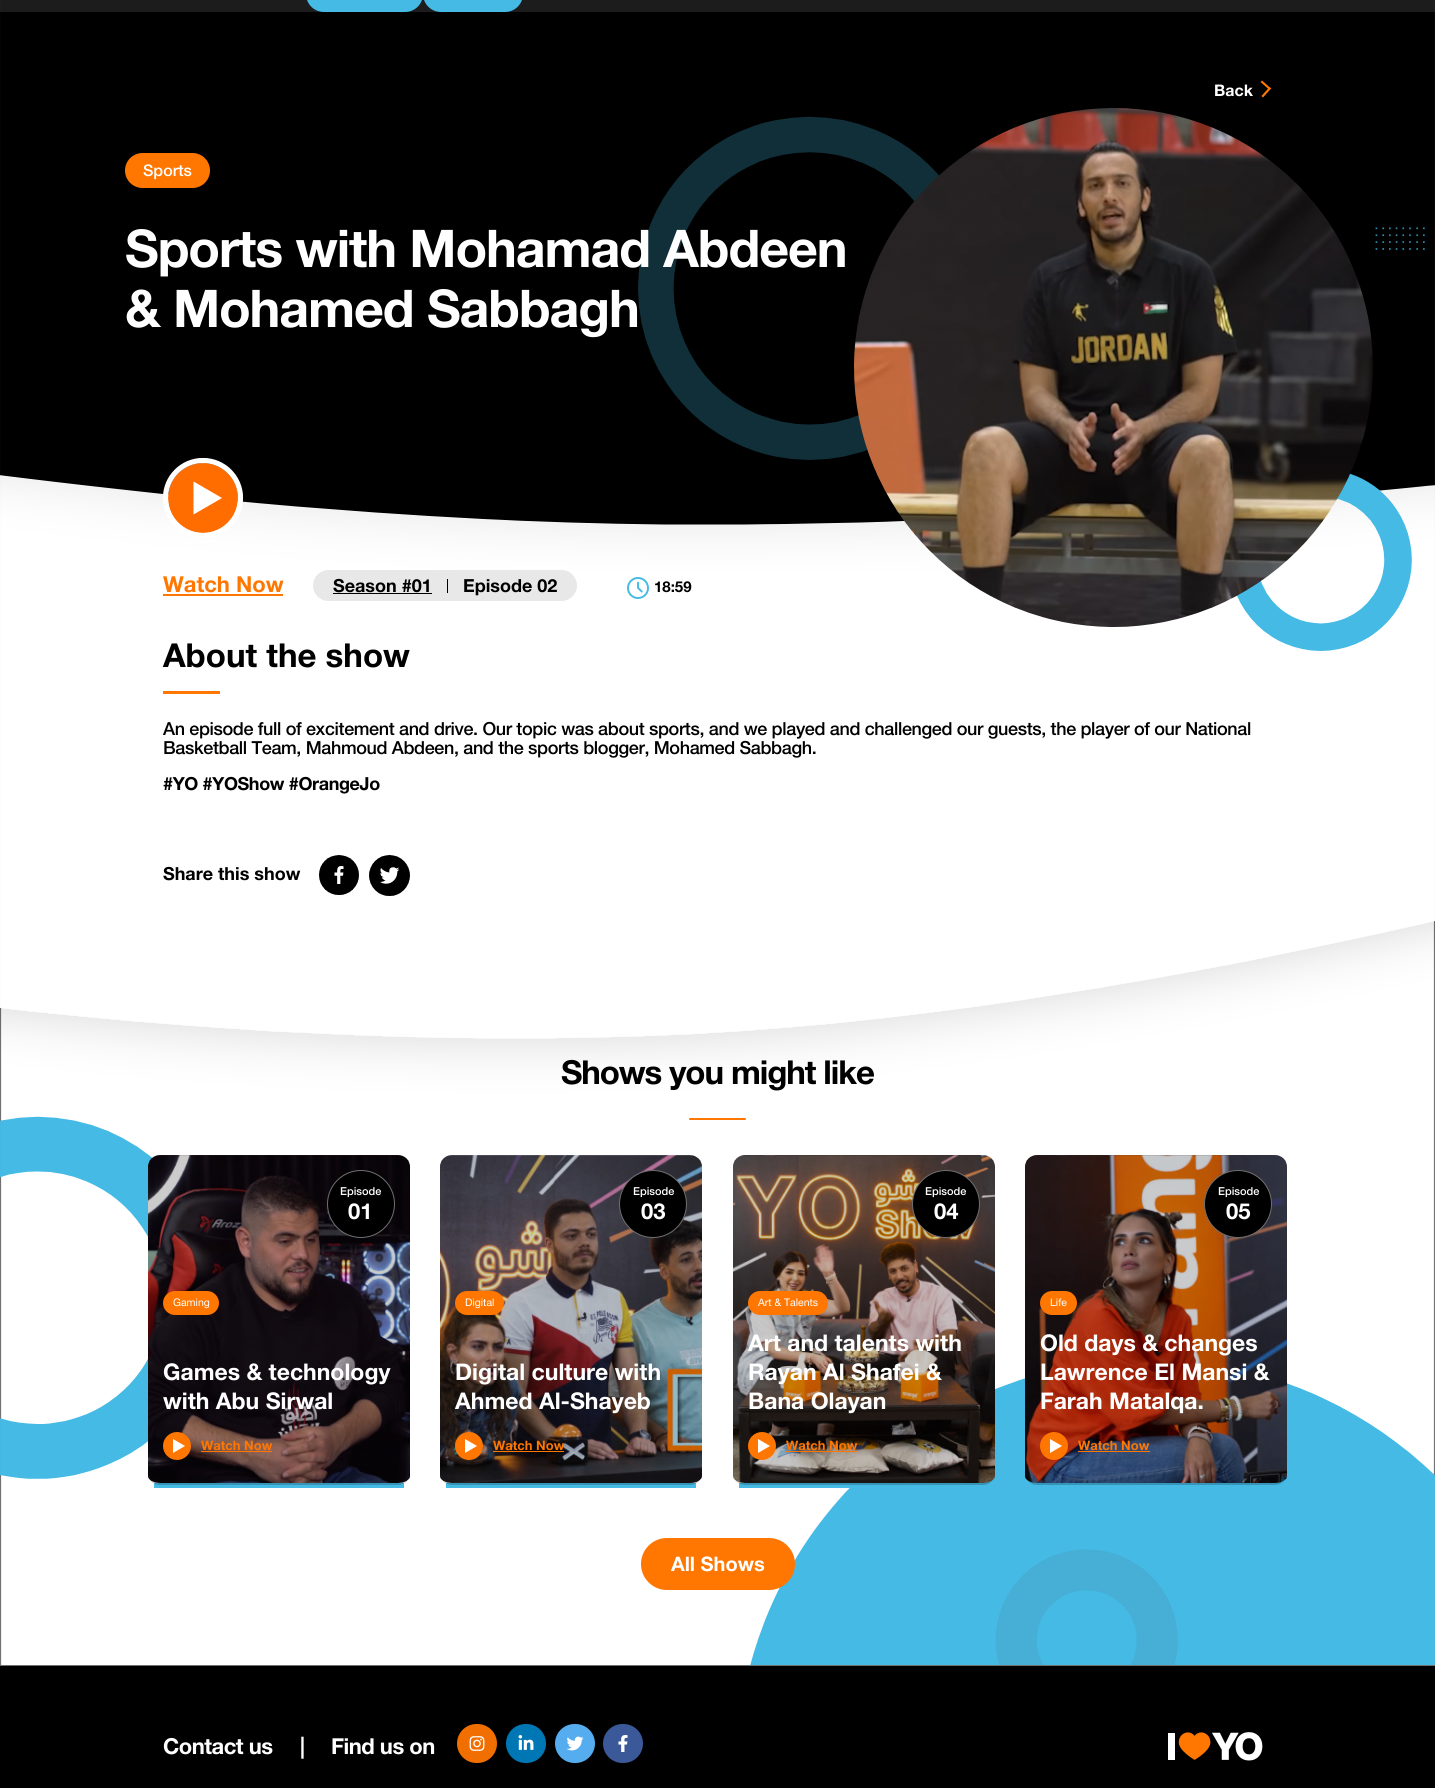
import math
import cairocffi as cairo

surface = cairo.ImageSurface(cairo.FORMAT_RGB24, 1435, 1788)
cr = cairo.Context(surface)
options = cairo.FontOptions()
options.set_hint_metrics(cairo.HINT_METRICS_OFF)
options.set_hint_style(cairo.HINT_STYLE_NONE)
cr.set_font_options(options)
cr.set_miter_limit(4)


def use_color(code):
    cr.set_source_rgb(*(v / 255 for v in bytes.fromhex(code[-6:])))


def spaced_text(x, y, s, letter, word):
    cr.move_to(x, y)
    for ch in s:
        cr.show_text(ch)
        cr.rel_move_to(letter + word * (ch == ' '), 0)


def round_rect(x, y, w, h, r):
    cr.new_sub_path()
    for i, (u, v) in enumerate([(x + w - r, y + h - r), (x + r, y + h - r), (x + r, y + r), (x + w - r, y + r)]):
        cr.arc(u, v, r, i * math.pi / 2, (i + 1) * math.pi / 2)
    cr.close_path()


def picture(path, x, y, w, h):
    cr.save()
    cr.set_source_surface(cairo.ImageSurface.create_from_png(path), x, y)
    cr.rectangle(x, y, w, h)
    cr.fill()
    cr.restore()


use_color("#ffffff")
cr.paint()
picture("img1.png", 0, 0, 1435, 1665)
cr.set_source_rgba(0.282, 0.282, 0.282, 0.4)
cr.rectangle(0, 0, 1435, 12)
cr.fill()
use_color("#44bae5")
round_rect(306, -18, 117, 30, 18)
cr.fill()
round_rect(423, -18, 100, 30, 18)
cr.fill()
cr.select_font_face("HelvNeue", cairo.FONT_SLANT_NORMAL, cairo.FONT_WEIGHT_BOLD)
cr.set_font_size(16)
use_color("#ffffff")
cr.move_to(1214, 96)
cr.show_text("Back")
use_color("#ff7900")
cr.new_path()
cr.move_to(1260.5, 82)
cr.line_to(1262, 80.5)
cr.line_to(1271, 88.5)
cr.line_to(1269.5, 90)
cr.close_path()
cr.fill()
cr.new_path()
cr.move_to(1261.5, 96)
cr.line_to(1269.5, 87)
cr.line_to(1271, 88.5)
cr.line_to(1263, 97.5)
cr.close_path()
cr.fill()
use_color("#ff7600")
round_rect(125, 153, 85, 35, 17.5)
cr.fill()
cr.select_font_face("HelvNeue Medium")
use_color("#ffffff")
cr.move_to(143, 176)
cr.show_text("Sports")
cr.select_font_face("HelvNeue", cairo.FONT_SLANT_NORMAL, cairo.FONT_WEIGHT_BOLD)
cr.set_font_size(52)
spaced_text(125, 267, "Sports with Mohamad Abdeen", -1.1, 0)
spaced_text(125, 327, "& Mohamed Sabbagh", -1.1, 0)
picture("img2.png", 854, 108, 519, 519)
use_color("#ff6c00")
cr.arc(203, 498, 35, 0, 2 * math.pi)
cr.fill()
cr.save()
cr.rectangle(163, 458, 80, 80)
cr.clip()
cr.arc(203, 498, 37.5, 0, 2 * math.pi)
use_color("#ffffff")
cr.set_line_width(5.2)
cr.stroke()
cr.restore()
use_color("#ffffff")
cr.new_path()
cr.move_to(193.5, 481.5)
cr.line_to(222, 498)
cr.line_to(193.5, 514.5)
cr.close_path()
cr.fill()
cr.set_font_size(22)
use_color("#ff7600")
cr.move_to(163, 592)
cr.show_text("Watch Now")
cr.rectangle(163, 594, 120, 2)
cr.fill()
use_color("#e8e8e8")
round_rect(313, 570, 264, 31, 15.5)
cr.fill()
cr.set_font_size(18)
use_color("#000000")
cr.move_to(333, 592)
cr.show_text("Season #01")
cr.rectangle(333, 593, 99, 1)
cr.fill()
cr.rectangle(447, 579, 1, 14)
cr.fill()
cr.move_to(463, 592)
cr.show_text("Episode 02")
picture("img3.png", 627, 577, 22, 22)
cr.set_font_size(15)
cr.move_to(654, 592)
cr.show_text("18:59")
cr.set_font_size(33)
cr.move_to(163, 667)
cr.show_text("About the show")
use_color("#ff7600")
cr.rectangle(163, 691, 57, 3)
cr.fill()
cr.select_font_face("HelvNeue Medium")
cr.set_font_size(18)
use_color("#000000")
spaced_text(163, 735, "An episode full of excitement and drive. Our topic was about sports, and we played and challenged our guests, the player of our National", -0.36, 0)
spaced_text(163, 754, "Basketball Team, Mahmoud Abdeen, and the sports blogger, Mohamed Sabbagh.", -0.36, 0)
cr.select_font_face("HelvNeue", cairo.FONT_SLANT_NORMAL, cairo.FONT_WEIGHT_BOLD)
spaced_text(163, 790, "#YO #YOShow #OrangeJo", -0.36, 0)
cr.move_to(163, 880)
cr.show_text("Share this show")
picture("img4.png", 319, 855, 40, 40)
picture("img5.png", 369, 855, 41, 41)
cr.set_font_size(33)
spaced_text(561, 1084, "Shows you might like", -1.1, 0)
use_color("#ff7600")
round_rect(689, 1118, 57, 2, 1)
cr.fill()
picture("img6.png", 148, 1155, 262, 328)
use_color("#44bae5")
cr.rectangle(154, 1483, 250, 5)
cr.fill()
cr.set_source_rgba(0, 0, 0, 0.2)
round_rect(148, 1155, 262, 330, 12)
cr.fill()
use_color("#000000")
cr.arc(361, 1204, 33.5, 0, 2 * math.pi)
cr.fill_preserve()
use_color("#707070")
cr.set_line_width(1)
cr.stroke()
cr.select_font_face("HelvNeue Medium")
cr.set_font_size(11)
use_color("#ffffff")
cr.move_to(340, 1195)
cr.show_text("Episode")
cr.select_font_face("HelvNeue", cairo.FONT_SLANT_NORMAL, cairo.FONT_WEIGHT_BOLD)
cr.set_font_size(22)
cr.move_to(348, 1219)
cr.show_text("01")
use_color("#ff7600")
round_rect(163, 1291, 56, 24, 12)
cr.fill()
cr.select_font_face("HelvNeue")
cr.set_font_size(10.5)
use_color("#ffffff")
cr.move_to(173, 1306)
cr.show_text("Gaming")
cr.select_font_face("HelvNeue", cairo.FONT_SLANT_NORMAL, cairo.FONT_WEIGHT_BOLD)
cr.set_font_size(23)
cr.move_to(163, 1380)
cr.show_text("Games & technology")
cr.move_to(163, 1409)
cr.show_text("with Abu Sirwal")
use_color("#ff7600")
cr.new_path()
cr.arc(177, 1446, 14, 0, 2 * math.pi)
cr.fill()
use_color("#ffffff")
cr.new_path()
cr.move_to(173, 1453)
cr.line_to(173, 1439)
cr.line_to(185, 1446)
cr.close_path()
cr.fill()
cr.set_font_size(13)
use_color("#ff7600")
cr.move_to(201, 1450)
cr.show_text("Watch Now")
cr.rectangle(201, 1451, 71, 1)
cr.fill()
picture("img7.png", 440, 1155, 262, 328)
use_color("#44bae5")
cr.rectangle(446, 1483, 250, 5)
cr.fill()
cr.set_source_rgba(0, 0, 0, 0.2)
round_rect(440, 1155, 262, 330, 12)
cr.fill()
use_color("#000000")
cr.arc(653, 1204, 33.5, 0, 2 * math.pi)
cr.fill_preserve()
use_color("#707070")
cr.stroke()
cr.select_font_face("HelvNeue Medium")
cr.set_font_size(11)
use_color("#ffffff")
cr.move_to(633, 1195)
cr.show_text("Episode")
cr.select_font_face("HelvNeue", cairo.FONT_SLANT_NORMAL, cairo.FONT_WEIGHT_BOLD)
cr.set_font_size(22)
cr.move_to(641, 1219)
cr.show_text("03")
use_color("#ff7600")
round_rect(455, 1291, 49, 24, 12)
cr.fill()
cr.select_font_face("HelvNeue")
cr.set_font_size(10.5)
use_color("#ffffff")
cr.move_to(465, 1306)
cr.show_text("Digital")
cr.select_font_face("HelvNeue", cairo.FONT_SLANT_NORMAL, cairo.FONT_WEIGHT_BOLD)
cr.set_font_size(23)
cr.move_to(455, 1380)
cr.show_text("Digital culture with")
cr.move_to(455, 1409)
cr.show_text("Ahmed Al-Shayeb")
use_color("#ff7600")
cr.new_path()
cr.arc(469, 1446, 14, 0, 2 * math.pi)
cr.fill()
use_color("#ffffff")
cr.new_path()
cr.move_to(465, 1453)
cr.line_to(465, 1439)
cr.line_to(477, 1446)
cr.close_path()
cr.fill()
cr.set_font_size(13)
use_color("#ff7600")
cr.move_to(493, 1450)
cr.show_text("Watch Now")
cr.rectangle(493, 1451, 71, 1)
cr.fill()
picture("img8.png", 733, 1155, 262, 328)
use_color("#44bae5")
cr.rectangle(739, 1483, 116, 5)
cr.fill()
cr.set_source_rgba(0, 0, 0, 0.2)
round_rect(733, 1155, 262, 330, 12)
cr.fill()
use_color("#000000")
cr.arc(946, 1204, 33.5, 0, 2 * math.pi)
cr.fill_preserve()
use_color("#707070")
cr.stroke()
cr.select_font_face("HelvNeue Medium")
cr.set_font_size(11)
use_color("#ffffff")
cr.move_to(925, 1195)
cr.show_text("Episode")
cr.select_font_face("HelvNeue", cairo.FONT_SLANT_NORMAL, cairo.FONT_WEIGHT_BOLD)
cr.set_font_size(22)
cr.move_to(934, 1219)
cr.show_text("04")
use_color("#ff7600")
round_rect(748, 1291, 80, 24, 12)
cr.fill()
cr.select_font_face("HelvNeue")
cr.set_font_size(10.5)
use_color("#ffffff")
cr.move_to(758, 1306)
cr.show_text("Art & Talents")
cr.select_font_face("HelvNeue", cairo.FONT_SLANT_NORMAL, cairo.FONT_WEIGHT_BOLD)
cr.set_font_size(23)
cr.move_to(748, 1351)
cr.show_text("Art and talents with")
cr.move_to(748, 1380)
cr.show_text("Rayan Al Shafei &")
cr.move_to(748, 1409)
cr.show_text("Bana Olayan")
use_color("#ff7600")
cr.new_path()
cr.arc(762, 1446, 14, 0, 2 * math.pi)
cr.fill()
use_color("#ffffff")
cr.new_path()
cr.move_to(758, 1453)
cr.line_to(758, 1439)
cr.line_to(770, 1446)
cr.close_path()
cr.fill()
cr.set_font_size(13)
use_color("#ff7600")
cr.move_to(786, 1450)
cr.show_text("Watch Now")
cr.rectangle(786, 1451, 71, 1)
cr.fill()
picture("img9.png", 1025, 1155, 262, 328)
cr.set_source_rgba(0, 0, 0, 0.2)
round_rect(1025, 1155, 262, 330, 12)
cr.fill()
use_color("#000000")
cr.arc(1238, 1204, 33.5, 0, 2 * math.pi)
cr.fill_preserve()
use_color("#707070")
cr.stroke()
cr.select_font_face("HelvNeue Medium")
cr.set_font_size(11)
use_color("#ffffff")
cr.move_to(1218, 1195)
cr.show_text("Episode")
cr.select_font_face("HelvNeue", cairo.FONT_SLANT_NORMAL, cairo.FONT_WEIGHT_BOLD)
cr.set_font_size(22)
cr.move_to(1226, 1219)
cr.show_text("05")
use_color("#ff7600")
round_rect(1040, 1291, 37, 24, 12)
cr.fill()
cr.select_font_face("HelvNeue")
cr.set_font_size(10.5)
use_color("#ffffff")
cr.move_to(1050, 1306)
cr.show_text("Life")
cr.select_font_face("HelvNeue", cairo.FONT_SLANT_NORMAL, cairo.FONT_WEIGHT_BOLD)
cr.set_font_size(23)
cr.move_to(1040, 1351)
cr.show_text("Old days & changes")
cr.move_to(1040, 1380)
cr.show_text("Lawrence El Mansi &")
cr.move_to(1040, 1409)
cr.show_text("Farah Matalqa.")
use_color("#ff7600")
cr.new_path()
cr.arc(1054, 1446, 14, 0, 2 * math.pi)
cr.fill()
use_color("#ffffff")
cr.new_path()
cr.move_to(1050, 1453)
cr.line_to(1050, 1439)
cr.line_to(1062, 1446)
cr.close_path()
cr.fill()
cr.set_font_size(13)
use_color("#ff7600")
cr.move_to(1078, 1450)
cr.show_text("Watch Now")
cr.rectangle(1078, 1451, 72, 1)
cr.fill()
round_rect(641, 1538, 154, 52, 26)
cr.fill()
cr.set_font_size(20)
use_color("#ffffff")
cr.move_to(671, 1571)
cr.show_text("All Shows")
use_color("#000000")
cr.rectangle(0, 1666, 1435, 122)
cr.fill()
use_color("#707070")
cr.rectangle(0, 1665, 1435, 1)
cr.fill()
cr.set_font_size(22)
use_color("#ffffff")
spaced_text(163, 1754, "Contact us", -0.5, 0)
spaced_text(300, 1754, "|", -0.5, 0)
spaced_text(331, 1754, "Find us on", -0.5, 0)
use_color("#f16e00")
round_rect(457, 1724, 40, 39, 19.5)
cr.fill()
picture("img10.png", 469, 1736, 16, 15)
use_color("#0077b5")
round_rect(506, 1724, 40, 39, 19.5)
cr.fill()
picture("img11.png", 518, 1735, 16, 15)
use_color("#55acee")
round_rect(555, 1724, 40, 39, 19.5)
cr.fill()
picture("img12.png", 566, 1736, 18, 15)
use_color("#3b5998")
round_rect(603, 1724, 40, 39, 19.5)
cr.fill()
picture("img13.png", 618, 1735, 10, 17)
picture("img14.png", 1168, 1732, 95, 29)
surface.write_to_png("result.png")
